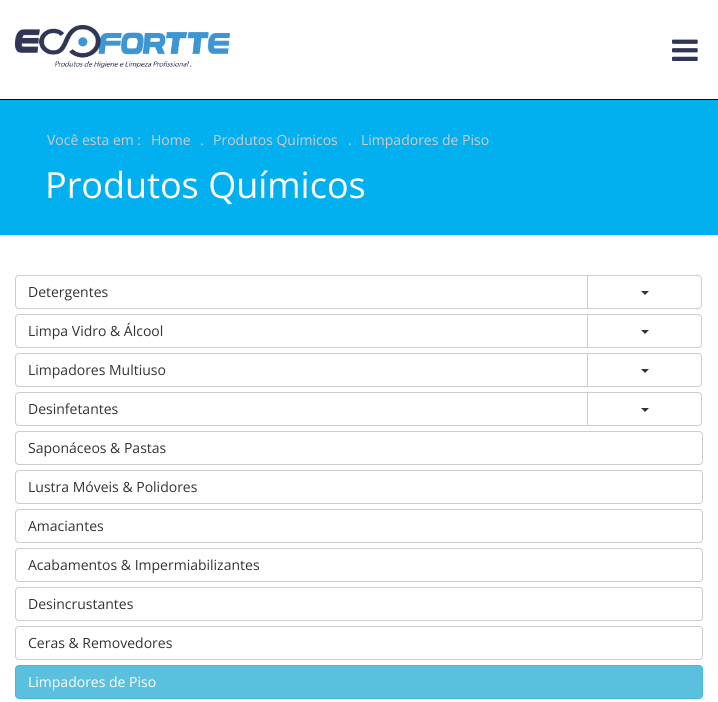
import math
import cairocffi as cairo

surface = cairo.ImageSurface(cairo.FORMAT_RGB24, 718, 702)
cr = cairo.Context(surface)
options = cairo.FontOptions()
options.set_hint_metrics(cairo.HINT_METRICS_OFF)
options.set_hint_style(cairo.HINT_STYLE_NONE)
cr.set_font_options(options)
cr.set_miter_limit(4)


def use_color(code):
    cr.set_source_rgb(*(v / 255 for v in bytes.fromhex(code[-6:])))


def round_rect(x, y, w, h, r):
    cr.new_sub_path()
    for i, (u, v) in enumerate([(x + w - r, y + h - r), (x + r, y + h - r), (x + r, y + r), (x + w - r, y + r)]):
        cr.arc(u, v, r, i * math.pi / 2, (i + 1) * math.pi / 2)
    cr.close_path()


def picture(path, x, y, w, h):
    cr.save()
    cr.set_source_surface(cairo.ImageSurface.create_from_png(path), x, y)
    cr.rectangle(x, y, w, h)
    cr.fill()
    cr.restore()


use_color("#ffffff")
cr.paint()
use_color("#000000")
cr.rectangle(0, 99, 718, 1)
cr.fill()
picture("img1.png", 15, 25, 215, 43)
picture("img2.png", 672, 39, 26, 22)
use_color("#02b0ef")
cr.rectangle(0, 100, 718, 135)
cr.fill()
cr.select_font_face("Open Sans")
cr.set_font_size(14)
use_color("#cccccc")
cr.move_to(47, 145)
cr.show_text("Você esta em :")
cr.move_to(151, 145)
cr.show_text("Home")
cr.move_to(200, 145)
cr.show_text(".")
cr.move_to(213, 145)
cr.show_text("Produtos Químicos")
cr.move_to(348, 145)
cr.show_text(".")
cr.move_to(361, 145)
cr.show_text("Limpadores de Piso")
cr.set_font_size(36)
use_color("#ffffff")
cr.move_to(45, 198)
cr.show_text("Produtos Químicos")
cr.new_path()
cr.move_to(19, 275.5)
cr.line_to(587.5, 275.5)
cr.line_to(587.5, 308.5)
cr.line_to(19, 308.5)
cr.curve_to(17, 308.5, 15.5, 307, 15.5, 305)
cr.line_to(15.5, 279)
cr.curve_to(15.5, 277, 17, 275.5, 19, 275.5)
cr.close_path()
use_color("#cccccc")
cr.set_line_width(1)
cr.stroke()
cr.set_font_size(14)
use_color("#333333")
cr.move_to(28, 297)
cr.show_text("Detergentes")
use_color("#ffffff")
cr.new_path()
cr.move_to(587.5, 275.5)
cr.line_to(698, 275.5)
cr.curve_to(700, 275.5, 701.5, 277, 701.5, 279)
cr.line_to(701.5, 305)
cr.curve_to(701.5, 307, 700, 308.5, 698, 308.5)
cr.line_to(587.5, 308.5)
cr.close_path()
cr.fill_preserve()
use_color("#cccccc")
cr.stroke()
use_color("#333333")
cr.new_path()
cr.move_to(641, 291)
cr.line_to(649, 291)
cr.line_to(645, 295)
cr.close_path()
cr.fill()
cr.new_path()
cr.move_to(19, 314.5)
cr.line_to(587.5, 314.5)
cr.line_to(587.5, 347.5)
cr.line_to(19, 347.5)
cr.curve_to(17, 347.5, 15.5, 346, 15.5, 344)
cr.line_to(15.5, 318)
cr.curve_to(15.5, 316, 17, 314.5, 19, 314.5)
cr.close_path()
use_color("#cccccc")
cr.stroke()
use_color("#333333")
cr.move_to(28, 336)
cr.show_text("Limpa Vidro & Álcool")
use_color("#ffffff")
cr.new_path()
cr.move_to(587.5, 314.5)
cr.line_to(698, 314.5)
cr.curve_to(700, 314.5, 701.5, 316, 701.5, 318)
cr.line_to(701.5, 344)
cr.curve_to(701.5, 346, 700, 347.5, 698, 347.5)
cr.line_to(587.5, 347.5)
cr.close_path()
cr.fill_preserve()
use_color("#cccccc")
cr.stroke()
use_color("#333333")
cr.new_path()
cr.move_to(641, 330)
cr.line_to(649, 330)
cr.line_to(645, 334)
cr.close_path()
cr.fill()
cr.new_path()
cr.move_to(19, 353.5)
cr.line_to(587.5, 353.5)
cr.line_to(587.5, 386.5)
cr.line_to(19, 386.5)
cr.curve_to(17, 386.5, 15.5, 385, 15.5, 383)
cr.line_to(15.5, 357)
cr.curve_to(15.5, 355, 17, 353.5, 19, 353.5)
cr.close_path()
use_color("#cccccc")
cr.stroke()
use_color("#333333")
cr.move_to(28, 375)
cr.show_text("Limpadores Multiuso")
use_color("#ffffff")
cr.new_path()
cr.move_to(587.5, 353.5)
cr.line_to(698, 353.5)
cr.curve_to(700, 353.5, 701.5, 355, 701.5, 357)
cr.line_to(701.5, 383)
cr.curve_to(701.5, 385, 700, 386.5, 698, 386.5)
cr.line_to(587.5, 386.5)
cr.close_path()
cr.fill_preserve()
use_color("#cccccc")
cr.stroke()
use_color("#333333")
cr.new_path()
cr.move_to(641, 369)
cr.line_to(649, 369)
cr.line_to(645, 373)
cr.close_path()
cr.fill()
cr.new_path()
cr.move_to(19, 392.5)
cr.line_to(587.5, 392.5)
cr.line_to(587.5, 425.5)
cr.line_to(19, 425.5)
cr.curve_to(17, 425.5, 15.5, 424, 15.5, 422)
cr.line_to(15.5, 396)
cr.curve_to(15.5, 394, 17, 392.5, 19, 392.5)
cr.close_path()
use_color("#cccccc")
cr.stroke()
use_color("#333333")
cr.move_to(28, 414)
cr.show_text("Desinfetantes")
use_color("#ffffff")
cr.new_path()
cr.move_to(587.5, 392.5)
cr.line_to(698, 392.5)
cr.curve_to(700, 392.5, 701.5, 394, 701.5, 396)
cr.line_to(701.5, 422)
cr.curve_to(701.5, 424, 700, 425.5, 698, 425.5)
cr.line_to(587.5, 425.5)
cr.close_path()
cr.fill_preserve()
use_color("#cccccc")
cr.stroke()
use_color("#333333")
cr.new_path()
cr.move_to(641, 408)
cr.line_to(649, 408)
cr.line_to(645, 412)
cr.close_path()
cr.fill()
round_rect(15.5, 431.5, 687, 33, 3.5)
use_color("#cccccc")
cr.stroke()
use_color("#333333")
cr.move_to(28, 453)
cr.show_text("Saponáceos & Pastas")
round_rect(15.5, 470.5, 687, 33, 3.5)
use_color("#cccccc")
cr.stroke()
use_color("#333333")
cr.move_to(28, 492)
cr.show_text("Lustra Móveis & Polidores")
round_rect(15.5, 509.5, 687, 33, 3.5)
use_color("#cccccc")
cr.stroke()
use_color("#333333")
cr.move_to(28, 531)
cr.show_text("Amaciantes")
round_rect(15.5, 548.5, 687, 33, 3.5)
use_color("#cccccc")
cr.stroke()
use_color("#333333")
cr.move_to(28, 570)
cr.show_text("Acabamentos & Impermiabilizantes")
round_rect(15.5, 587.5, 687, 33, 3.5)
use_color("#cccccc")
cr.stroke()
use_color("#333333")
cr.move_to(28, 609)
cr.show_text("Desincrustantes")
round_rect(15.5, 626.5, 687, 33, 3.5)
use_color("#cccccc")
cr.stroke()
use_color("#333333")
cr.move_to(28, 648)
cr.show_text("Ceras & Removedores")
use_color("#5bc0de")
round_rect(15.5, 665.5, 687, 33, 3.5)
cr.fill_preserve()
use_color("#46b8da")
cr.stroke()
use_color("#ffffff")
cr.move_to(28, 687)
cr.show_text("Limpadores de Piso")
surface.write_to_png("result.png")
